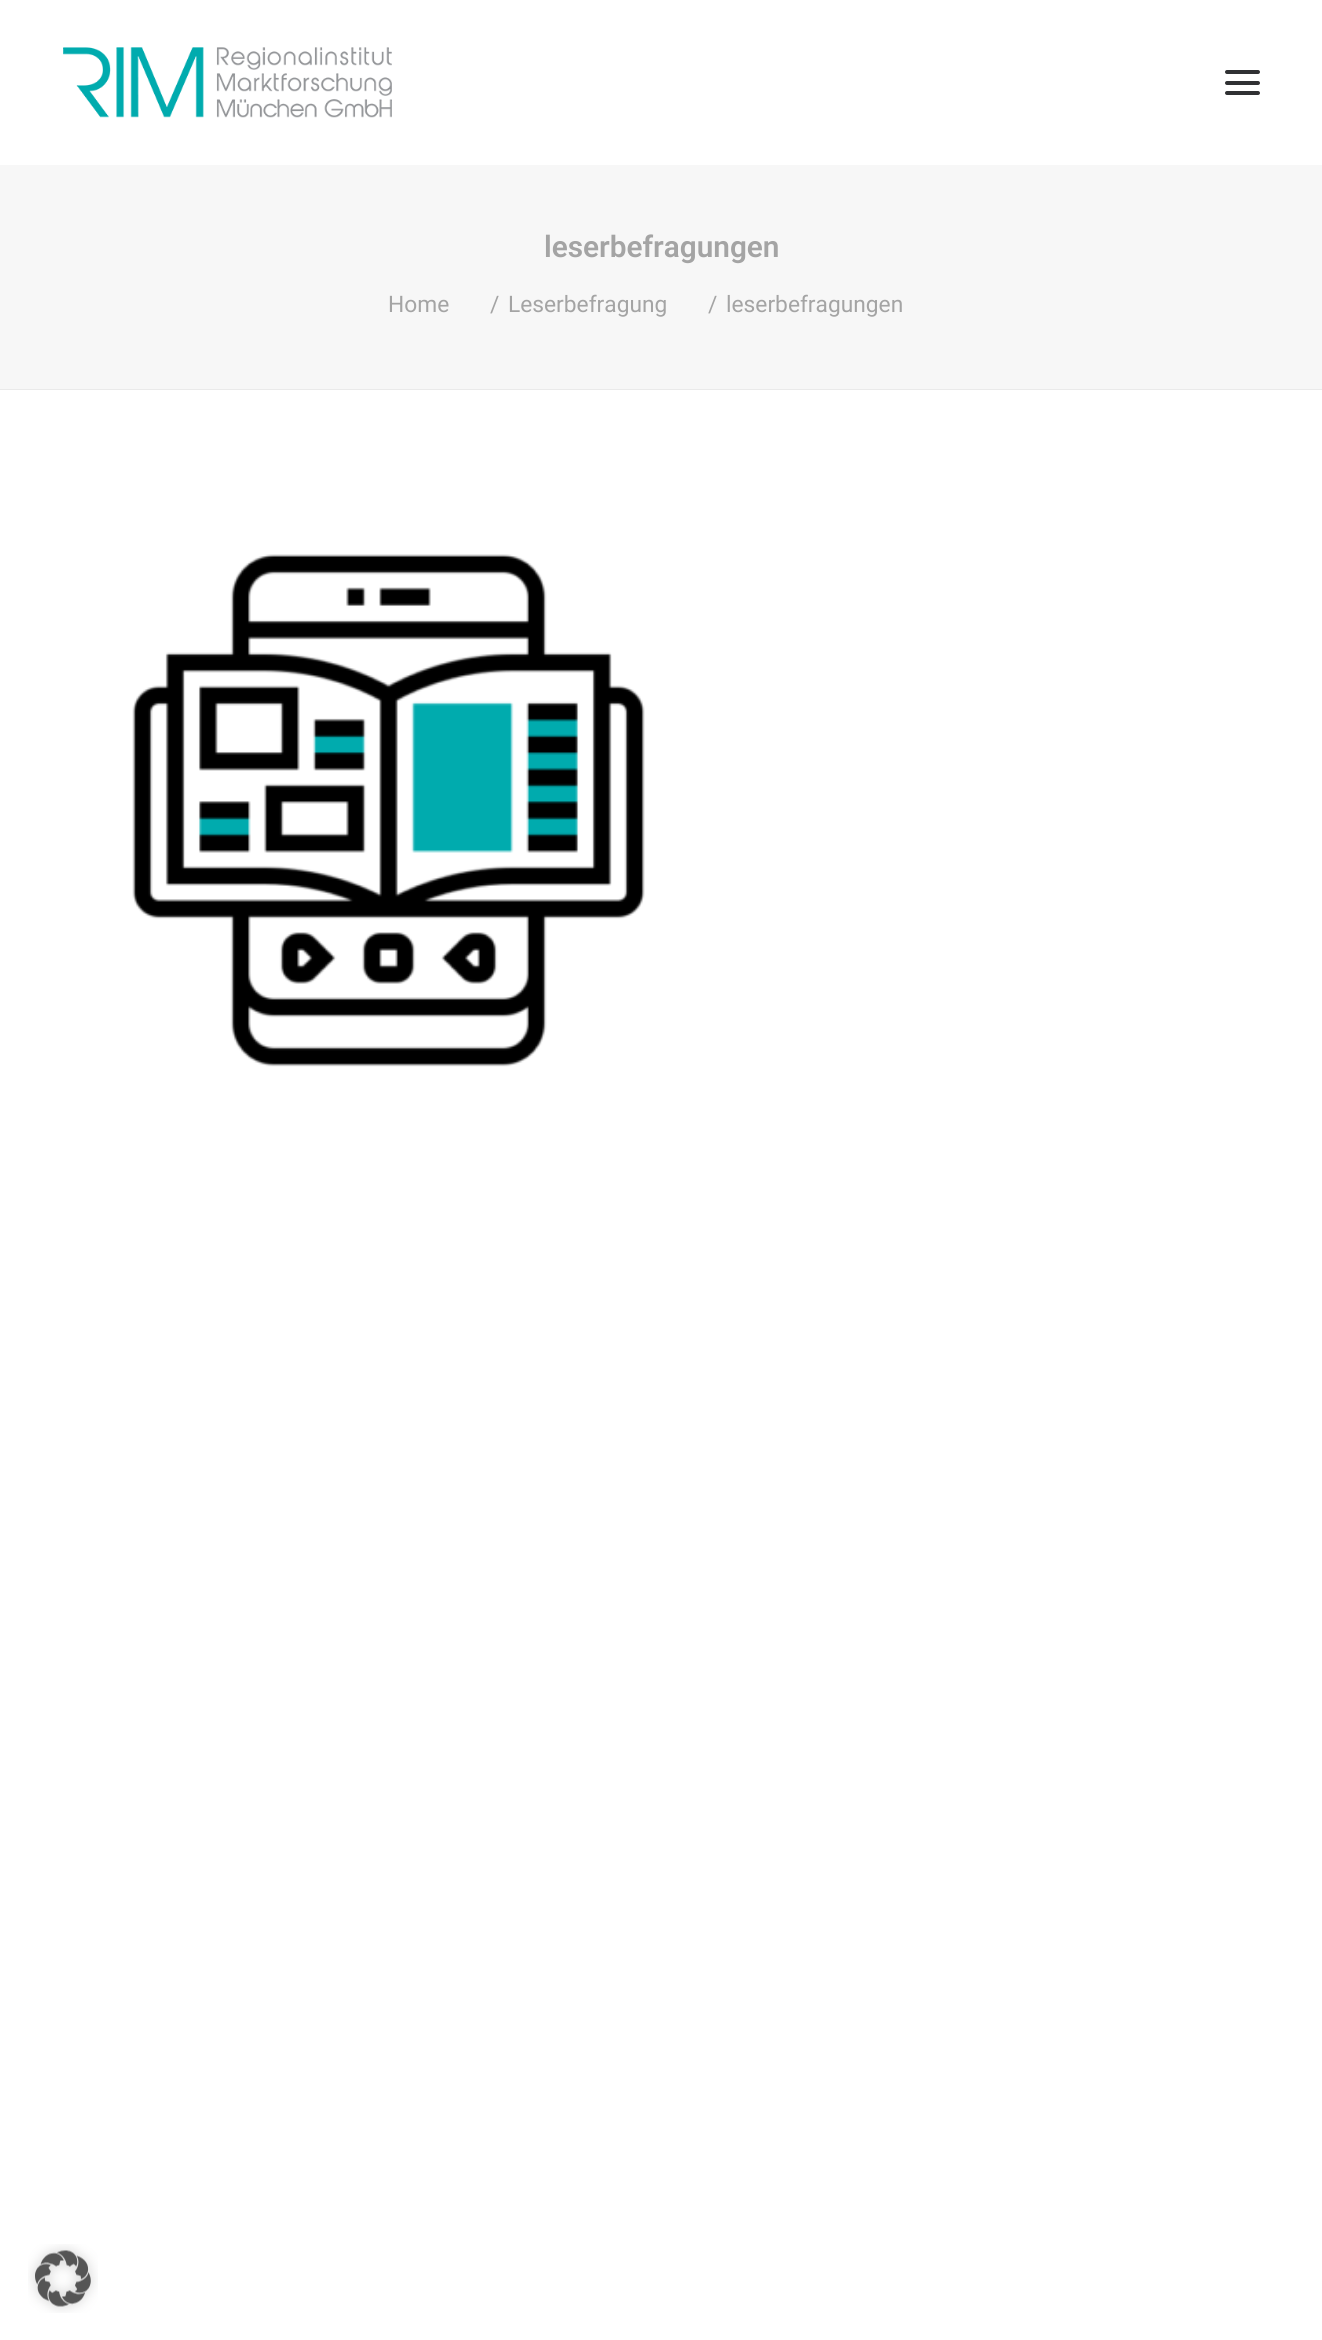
import math
import cairocffi as cairo

surface = cairo.ImageSurface(cairo.FORMAT_RGB24, 1322, 2340)
cr = cairo.Context(surface)
options = cairo.FontOptions()
options.set_hint_metrics(cairo.HINT_METRICS_OFF)
options.set_hint_style(cairo.HINT_STYLE_NONE)
cr.set_font_options(options)
cr.set_miter_limit(4)


def use_color(code):
    cr.set_source_rgb(*(v / 255 for v in bytes.fromhex(code[-6:])))


def round_rect(x, y, w, h, r):
    cr.new_sub_path()
    for i, (u, v) in enumerate([(x + w - r, y + h - r), (x + r, y + h - r), (x + r, y + r), (x + w - r, y + r)]):
        cr.arc(u, v, r, i * math.pi / 2, (i + 1) * math.pi / 2)
    cr.close_path()


def picture(path, x, y, w, h):
    cr.save()
    cr.set_source_surface(cairo.ImageSurface.create_from_png(path), x, y)
    cr.rectangle(x, y, w, h)
    cr.fill()
    cr.restore()


use_color("#f7f7f7")
cr.paint()
use_color("#ffffff")
cr.rectangle(0, 0, 1322, 165)
cr.fill()
picture("img1.png", 63, 47, 329, 71)
use_color("#303133")
round_rect(1225, 81, 35, 4, 2)
cr.fill()
round_rect(1225, 70, 35, 4, 2)
cr.fill()
round_rect(1225, 91, 35, 4, 2)
cr.fill()
use_color("#eaeaea")
cr.rectangle(0, 389, 1322, 1)
cr.fill()
cr.select_font_face("Roboto SemiBold")
cr.set_font_size(29.75)
use_color("#a4a4a4")
cr.move_to(544, 257)
cr.show_text("leserbefragungen")
cr.select_font_face("Roboto")
cr.set_font_size(22.75)
cr.move_to(388, 312)
cr.show_text("Home")
cr.move_to(490, 312)
cr.show_text("/")
cr.move_to(508, 312)
cr.show_text("Leserbefragung")
cr.move_to(708, 312)
cr.show_text("/")
cr.move_to(726, 312)
cr.show_text("leserbefragungen")
use_color("#ffffff")
cr.rectangle(0, 390, 1322, 1950)
cr.fill()
picture("img2.png", 132, 554, 513, 513)
picture("img3.png", 28, 2244, 70, 69)
surface.write_to_png("result.png")
